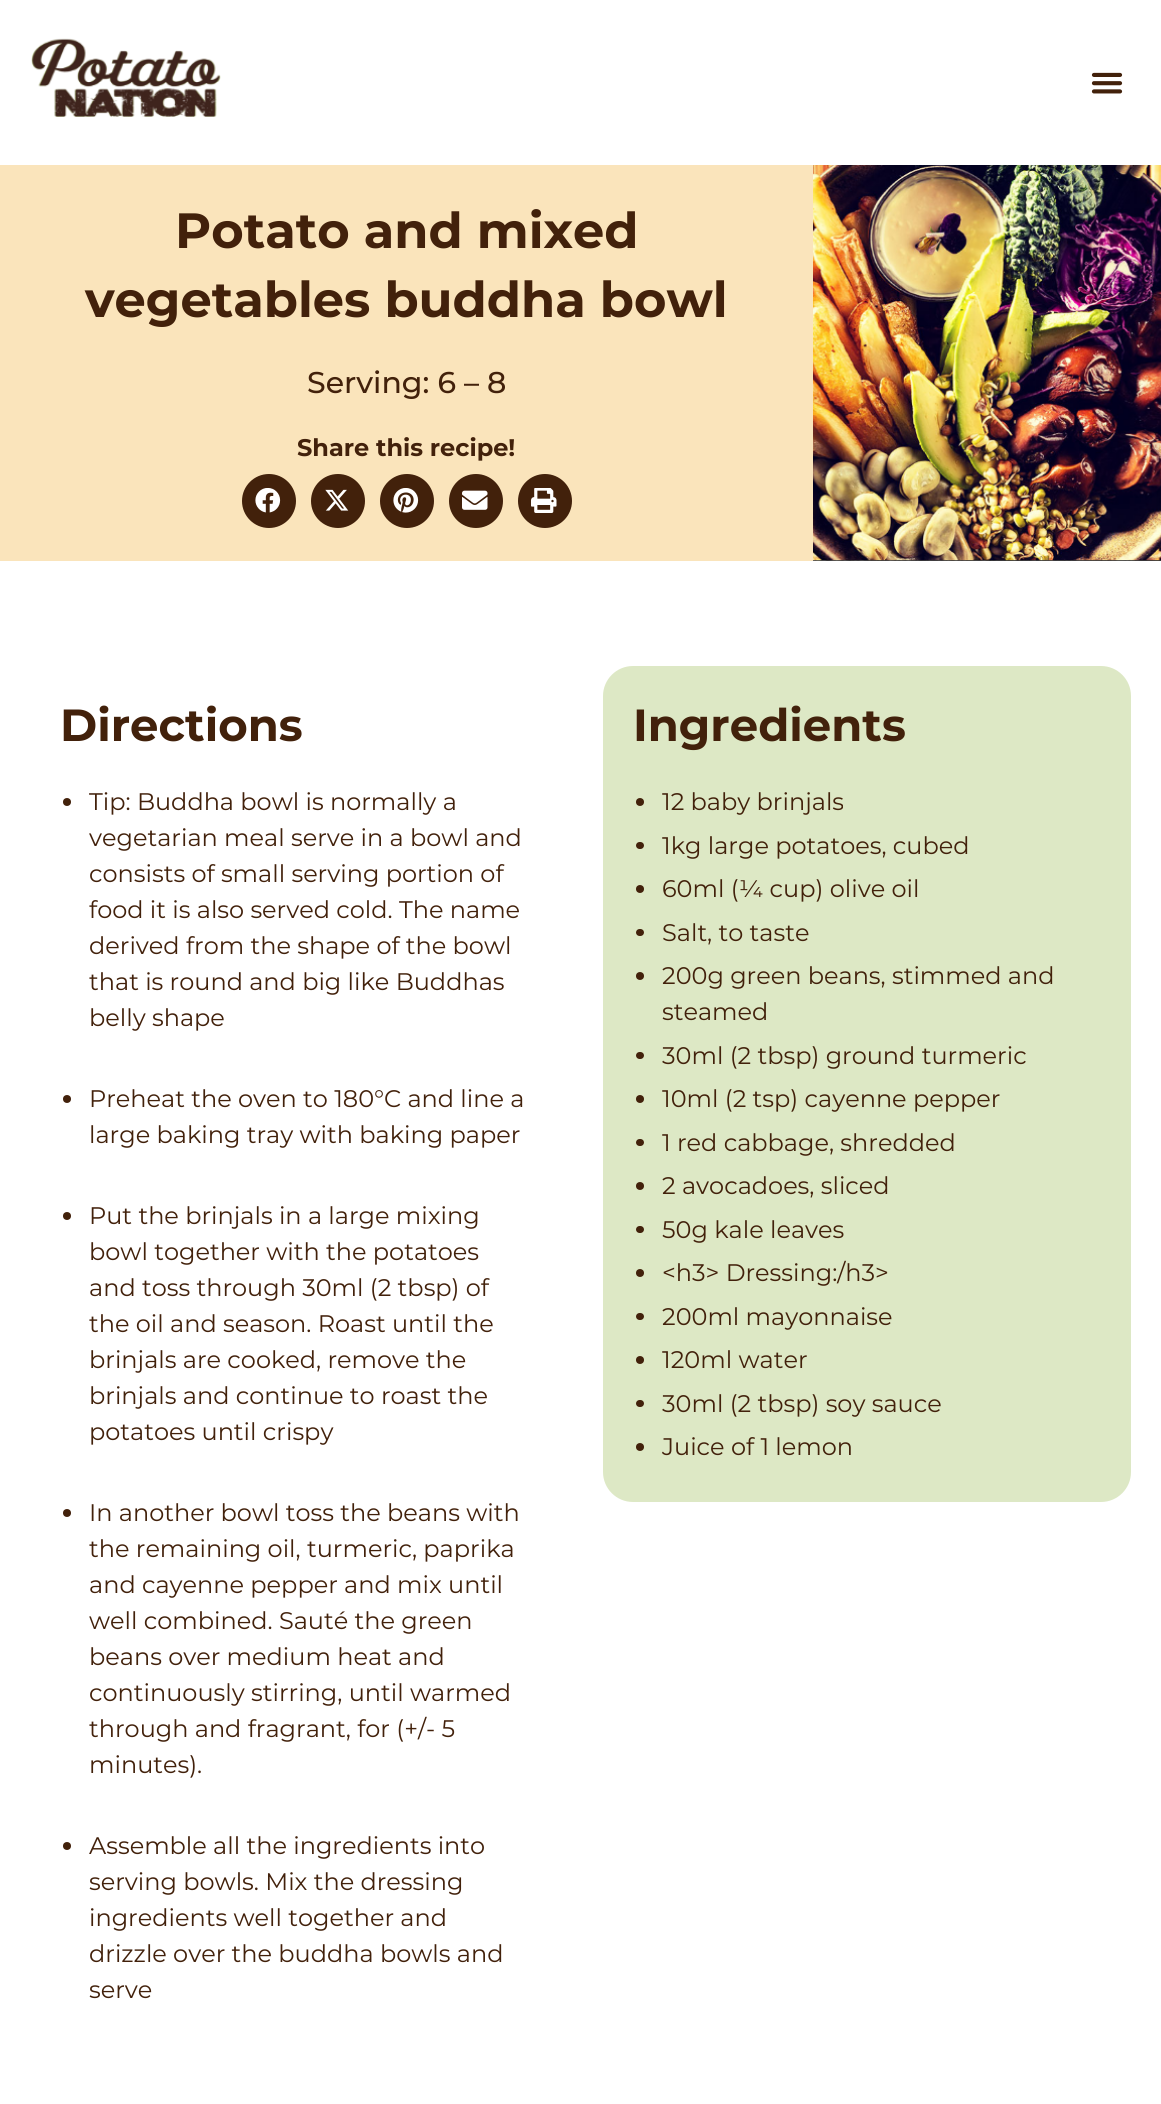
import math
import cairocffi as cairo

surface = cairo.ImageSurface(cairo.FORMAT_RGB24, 1161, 2104)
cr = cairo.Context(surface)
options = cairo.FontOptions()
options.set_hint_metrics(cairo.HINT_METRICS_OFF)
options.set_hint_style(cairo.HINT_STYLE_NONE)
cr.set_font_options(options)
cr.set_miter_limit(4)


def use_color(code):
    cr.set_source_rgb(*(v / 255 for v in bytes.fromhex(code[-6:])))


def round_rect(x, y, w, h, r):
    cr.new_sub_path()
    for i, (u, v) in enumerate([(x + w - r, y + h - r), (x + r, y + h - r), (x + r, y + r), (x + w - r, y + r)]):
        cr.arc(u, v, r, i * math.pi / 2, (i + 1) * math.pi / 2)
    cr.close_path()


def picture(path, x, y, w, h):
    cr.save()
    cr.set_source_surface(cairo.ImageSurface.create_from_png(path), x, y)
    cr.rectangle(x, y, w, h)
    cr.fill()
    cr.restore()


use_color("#ffffff")
cr.paint()
picture("img1.png", 31, 38, 190, 79)
picture("img2.png", 1091, 72, 32, 22)
use_color("#fae4bb")
cr.rectangle(0, 165, 813, 396)
cr.fill()
cr.select_font_face("Montserrat", cairo.FONT_SLANT_NORMAL, cairo.FONT_WEIGHT_BOLD)
cr.set_font_size(49.5)
use_color("#42210b")
cr.move_to(175, 248)
cr.show_text("Potato and mixed")
cr.move_to(85, 317)
cr.show_text("vegetables buddha bowl")
cr.select_font_face("Montserrat Medium")
cr.set_font_size(30)
cr.move_to(307, 393)
cr.show_text("Serving: 6 – 8")
cr.select_font_face("Montserrat", cairo.FONT_SLANT_NORMAL, cairo.FONT_WEIGHT_BOLD)
cr.set_font_size(24)
cr.move_to(297, 456)
cr.show_text("Share this recipe!")
cr.new_path()
cr.arc(269, 501, 27, 0, 2 * math.pi)
cr.fill()
picture("img3.png", 255, 488, 26, 25)
cr.arc(338, 501, 27, 0, 2 * math.pi)
cr.fill()
picture("img4.png", 325, 489, 24, 22)
cr.arc(407, 501, 27, 0, 2 * math.pi)
cr.fill()
picture("img5.png", 393, 488, 26, 25)
cr.arc(476, 501, 27, 0, 2 * math.pi)
cr.fill()
picture("img6.png", 462, 490, 26, 20)
cr.arc(545, 501, 27, 0, 2 * math.pi)
cr.fill()
picture("img7.png", 531, 488, 26, 25)
picture("img8.png", 813, 165, 348, 396)
cr.set_font_size(45)
cr.move_to(60, 741)
cr.show_text("Directions")
cr.new_path()
cr.arc(67, 802, 4, 0, 2 * math.pi)
cr.fill()
cr.select_font_face("Montserrat")
cr.set_font_size(24)
cr.move_to(89, 810)
cr.show_text("Tip: Buddha bowl is normally a")
cr.move_to(89, 846)
cr.show_text("vegetarian meal serve in a bowl and")
cr.move_to(89, 882)
cr.show_text("consists of small serving portion of")
cr.move_to(89, 918)
cr.show_text("food it is also served cold. The name")
cr.move_to(89, 954)
cr.show_text("derived from the shape of the bowl")
cr.move_to(89, 990)
cr.show_text("that is round and big like Buddhas")
cr.move_to(89, 1026)
cr.show_text("belly shape")
cr.new_path()
cr.arc(67, 1099, 4, 0, 2 * math.pi)
cr.fill()
cr.move_to(89, 1107)
cr.show_text("Preheat the oven to 180°C and line a")
cr.move_to(89, 1143)
cr.show_text("large baking tray with baking paper")
cr.new_path()
cr.arc(67, 1216, 4, 0, 2 * math.pi)
cr.fill()
cr.move_to(89, 1224)
cr.show_text("Put the brinjals in a large mixing")
cr.move_to(89, 1260)
cr.show_text("bowl together with the potatoes")
cr.move_to(89, 1296)
cr.show_text("and toss through 30ml (2 tbsp) of")
cr.move_to(89, 1332)
cr.show_text("the oil and season. Roast until the")
cr.move_to(89, 1368)
cr.show_text("brinjals are cooked, remove the")
cr.move_to(89, 1404)
cr.show_text("brinjals and continue to roast the")
cr.move_to(89, 1440)
cr.show_text("potatoes until crispy")
cr.new_path()
cr.arc(67, 1513, 4, 0, 2 * math.pi)
cr.fill()
cr.move_to(89, 1521)
cr.show_text("In another bowl toss the beans with")
cr.move_to(89, 1557)
cr.show_text("the remaining oil, turmeric, paprika")
cr.move_to(89, 1593)
cr.show_text("and cayenne pepper and mix until")
cr.move_to(89, 1629)
cr.show_text("well combined. Sauté the green")
cr.move_to(89, 1665)
cr.show_text("beans over medium heat and")
cr.move_to(89, 1701)
cr.show_text("continuously stirring, until warmed")
cr.move_to(89, 1737)
cr.show_text("through and fragrant, for (+/- 5")
cr.move_to(89, 1773)
cr.show_text("minutes).")
cr.new_path()
cr.arc(67, 1846, 4, 0, 2 * math.pi)
cr.fill()
cr.move_to(89, 1854)
cr.show_text("Assemble all the ingredients into")
cr.move_to(89, 1890)
cr.show_text("serving bowls. Mix the dressing")
cr.move_to(89, 1926)
cr.show_text("ingredients well together and")
cr.move_to(89, 1962)
cr.show_text("drizzle over the buddha bowls and")
cr.move_to(89, 1998)
cr.show_text("serve")
use_color("#dde8c5")
round_rect(603, 666, 528, 836, 30)
cr.fill()
cr.select_font_face("Montserrat", cairo.FONT_SLANT_NORMAL, cairo.FONT_WEIGHT_BOLD)
cr.set_font_size(45)
use_color("#42210b")
cr.move_to(633, 741)
cr.show_text("Ingredients")
cr.new_path()
cr.arc(640, 802, 4, 0, 2 * math.pi)
cr.fill()
cr.select_font_face("Montserrat")
cr.set_font_size(24)
cr.move_to(662, 810)
cr.show_text("12 baby brinjals")
round_rect(636, 842, 8, 7, 3.5)
cr.fill()
cr.move_to(662, 854)
cr.show_text("1kg large potatoes, cubed")
cr.new_path()
cr.arc(640, 889, 4, 0, 2 * math.pi)
cr.fill()
cr.move_to(662, 897)
cr.show_text("60ml (¼ cup) olive oil")
round_rect(636, 929, 8, 7, 3.5)
cr.fill()
cr.move_to(662, 941)
cr.show_text("Salt, to taste")
cr.new_path()
cr.arc(640, 976, 4, 0, 2 * math.pi)
cr.fill()
cr.move_to(662, 984)
cr.show_text("200g green beans, stimmed and")
cr.move_to(662, 1020)
cr.show_text("steamed")
round_rect(636, 1052, 8, 7, 3.5)
cr.fill()
cr.move_to(662, 1064)
cr.show_text("30ml (2 tbsp) ground turmeric")
cr.new_path()
cr.arc(640, 1099, 4, 0, 2 * math.pi)
cr.fill()
cr.move_to(662, 1107)
cr.show_text("10ml (2 tsp) cayenne pepper")
round_rect(636, 1139, 8, 7, 3.5)
cr.fill()
cr.move_to(662, 1151)
cr.show_text("1 red cabbage, shredded")
cr.new_path()
cr.arc(640, 1186, 4, 0, 2 * math.pi)
cr.fill()
cr.move_to(662, 1194)
cr.show_text("2 avocadoes, sliced")
round_rect(636, 1226, 8, 7, 3.5)
cr.fill()
cr.move_to(662, 1238)
cr.show_text("50g kale leaves")
cr.new_path()
cr.arc(640, 1273, 4, 0, 2 * math.pi)
cr.fill()
cr.move_to(662, 1281)
cr.show_text("<h3> Dressing:/h3>")
round_rect(636, 1313, 8, 7, 3.5)
cr.fill()
cr.move_to(662, 1325)
cr.show_text("200ml mayonnaise")
cr.new_path()
cr.arc(640, 1360, 4, 0, 2 * math.pi)
cr.fill()
cr.move_to(662, 1368)
cr.show_text("120ml water")
round_rect(636, 1400, 8, 7, 3.5)
cr.fill()
cr.move_to(662, 1412)
cr.show_text("30ml (2 tbsp) soy sauce")
cr.new_path()
cr.arc(640, 1447, 4, 0, 2 * math.pi)
cr.fill()
cr.move_to(662, 1455)
cr.show_text("Juice of 1 lemon")
surface.write_to_png("result.png")
